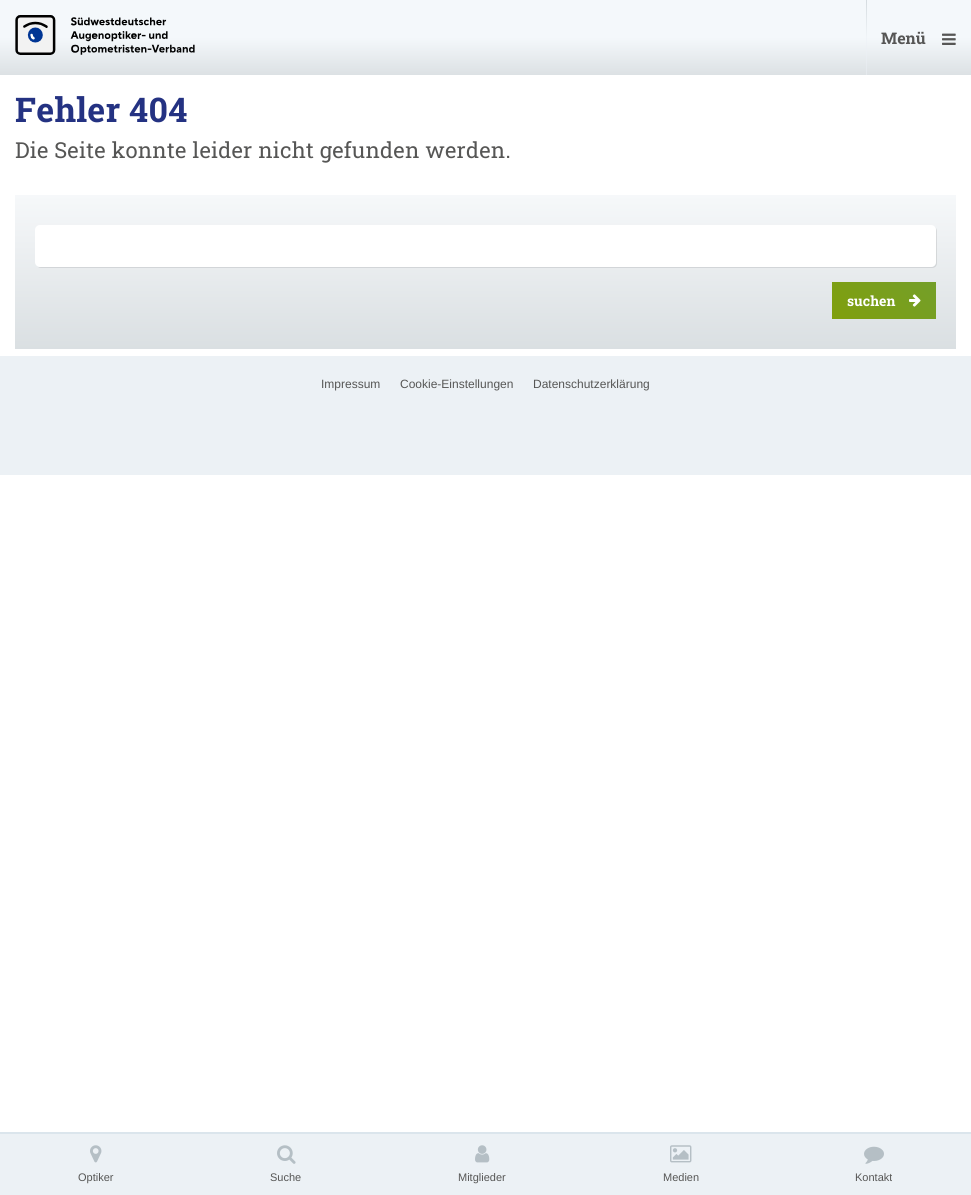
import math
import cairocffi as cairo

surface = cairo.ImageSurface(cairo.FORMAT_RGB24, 971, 1195)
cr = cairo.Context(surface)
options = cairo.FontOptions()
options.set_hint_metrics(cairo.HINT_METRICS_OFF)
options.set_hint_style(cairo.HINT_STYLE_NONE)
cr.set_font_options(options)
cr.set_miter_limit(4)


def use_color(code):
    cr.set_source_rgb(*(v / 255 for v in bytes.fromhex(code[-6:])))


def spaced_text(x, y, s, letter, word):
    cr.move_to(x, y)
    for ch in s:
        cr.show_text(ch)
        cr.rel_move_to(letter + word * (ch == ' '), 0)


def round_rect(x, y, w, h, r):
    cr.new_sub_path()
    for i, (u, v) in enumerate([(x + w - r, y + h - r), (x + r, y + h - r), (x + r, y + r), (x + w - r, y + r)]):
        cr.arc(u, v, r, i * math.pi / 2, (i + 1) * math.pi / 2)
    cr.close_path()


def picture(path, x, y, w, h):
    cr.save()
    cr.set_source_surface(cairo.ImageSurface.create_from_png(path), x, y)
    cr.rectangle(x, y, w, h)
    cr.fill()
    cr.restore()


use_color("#ffffff")
cr.paint()
gradient = cairo.LinearGradient(486, 0, 486, 75)
gradient.add_color_stop_rgba(0.5, 0.957, 0.973, 0.984, 1)
gradient.add_color_stop_rgba(1, 0.863, 0.882, 0.894, 1)
cr.set_source(gradient)
cr.rectangle(0, 0, 971, 75)
cr.fill()
picture("img1.png", 15, 15, 180, 40)
gradient = cairo.LinearGradient(867, 75, 867, 0)
gradient.add_color_stop_rgba(0.5, 0.925, 0.945, 0.961, 0.5)
gradient.add_color_stop_rgba(1, 0.71, 0.749, 0.773, 0.5)
cr.set_source(gradient)
cr.rectangle(866, 0, 1, 75)
cr.fill()
cr.select_font_face("Roboto Slab", cairo.FONT_SLANT_NORMAL, cairo.FONT_WEIGHT_BOLD)
cr.set_font_size(16)
use_color("#565655")
cr.move_to(881, 44)
cr.show_text("Menü")
picture("img2.png", 942, 33, 14, 12)
cr.set_font_size(34)
use_color("#243282")
spaced_text(15, 122, "Fehler 404", 0.25, 0)
cr.select_font_face("Roboto Slab")
cr.set_font_size(22)
use_color("#565655")
spaced_text(15, 158, "Die Seite konnte leider nicht gefunden werden.", 0.2, 0)
gradient = cairo.LinearGradient(486, 195, 486, 349)
gradient.add_color_stop_rgba(0, 0.965, 0.973, 0.98, 1)
gradient.add_color_stop_rgba(1, 0.855, 0.875, 0.886, 1)
cr.set_source(gradient)
cr.rectangle(15, 195, 941, 154)
cr.fill()
cr.set_source_rgba(0, 0, 0, 0.1)
cr.new_path()
cr.move_to(37, 266)
cr.curve_to(38, 267, 39, 268, 41, 268)
cr.line_to(932, 268)
cr.curve_to(935, 268, 937, 266, 937, 263)
cr.line_to(937, 231)
cr.curve_to(937, 229, 936, 228, 935, 227)
cr.curve_to(936, 228, 936, 229, 936, 230)
cr.line_to(936, 262)
cr.curve_to(936, 265, 934, 267, 931, 267)
cr.line_to(40, 267)
cr.curve_to(39, 267, 38, 267, 37, 266)
cr.close_path()
cr.fill()
use_color("#ffffff")
round_rect(35, 225, 901, 42, 5)
cr.fill()
gradient = cairo.LinearGradient(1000, 487, 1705, -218)
gradient.add_color_stop_rgba(0, 0.502, 0.624, 0.051, 1)
gradient.add_color_stop_rgba(0.75, 0.141, 0.62, 0.89, 1)
cr.set_source(gradient)
cr.rectangle(832, 282, 104, 37)
cr.fill()
cr.select_font_face("Roboto Slab", cairo.FONT_SLANT_NORMAL, cairo.FONT_WEIGHT_BOLD)
cr.set_font_size(14)
use_color("#ffffff")
cr.move_to(847, 306)
cr.show_text("suchen")
picture("img3.png", 909, 294, 12, 13)
use_color("#ecf1f5")
cr.rectangle(0, 356, 971, 119)
cr.fill()
cr.select_font_face("Liberation Sans")
cr.set_font_size(12)
use_color("#565655")
cr.move_to(321, 388)
cr.show_text("Impressum")
cr.move_to(400, 388)
cr.show_text("Cookie-Einstellungen")
cr.move_to(533, 388)
cr.show_text("Datenschutzerklärung")
use_color("#ecf1f5")
cr.rectangle(0, 1134, 971, 61)
cr.fill()
use_color("#dbe5ec")
cr.rectangle(0, 1132, 971, 2)
cr.fill()
picture("img4.png", 90, 1145, 12, 18)
cr.set_font_size(11)
use_color("#565655")
cr.move_to(78, 1181)
cr.show_text("Optiker")
picture("img5.png", 277, 1145, 19, 19)
cr.move_to(270, 1181)
cr.show_text("Suche")
picture("img6.png", 475, 1145, 15, 18)
cr.move_to(458, 1181)
cr.show_text("Mitglieder")
picture("img7.png", 670, 1145, 22, 18)
cr.move_to(663, 1181)
cr.show_text("Medien")
picture("img8.png", 864, 1146, 20, 18)
cr.move_to(855, 1181)
cr.show_text("Kontakt")
surface.write_to_png("result.png")
